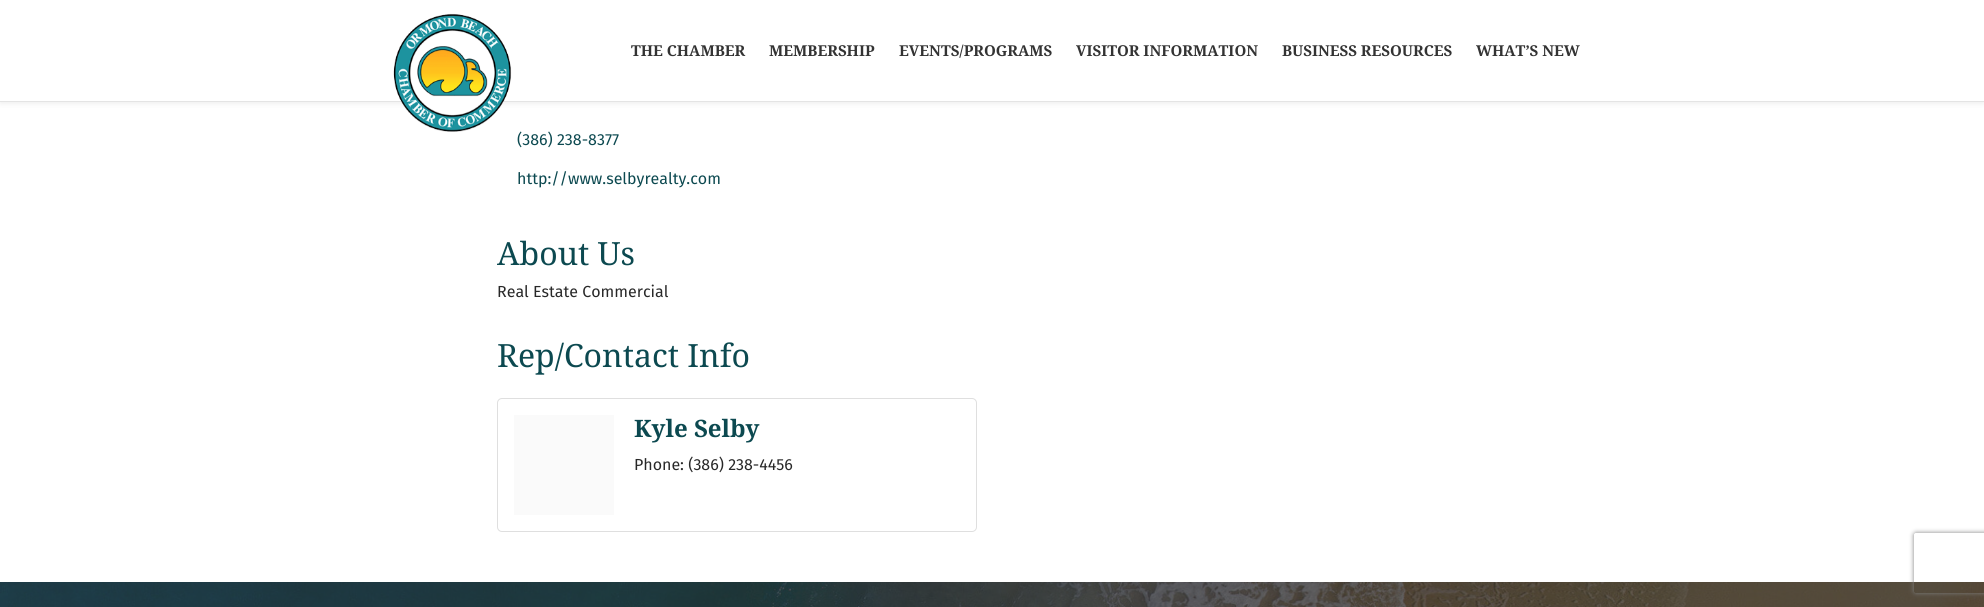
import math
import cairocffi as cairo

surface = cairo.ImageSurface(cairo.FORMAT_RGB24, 1984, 607)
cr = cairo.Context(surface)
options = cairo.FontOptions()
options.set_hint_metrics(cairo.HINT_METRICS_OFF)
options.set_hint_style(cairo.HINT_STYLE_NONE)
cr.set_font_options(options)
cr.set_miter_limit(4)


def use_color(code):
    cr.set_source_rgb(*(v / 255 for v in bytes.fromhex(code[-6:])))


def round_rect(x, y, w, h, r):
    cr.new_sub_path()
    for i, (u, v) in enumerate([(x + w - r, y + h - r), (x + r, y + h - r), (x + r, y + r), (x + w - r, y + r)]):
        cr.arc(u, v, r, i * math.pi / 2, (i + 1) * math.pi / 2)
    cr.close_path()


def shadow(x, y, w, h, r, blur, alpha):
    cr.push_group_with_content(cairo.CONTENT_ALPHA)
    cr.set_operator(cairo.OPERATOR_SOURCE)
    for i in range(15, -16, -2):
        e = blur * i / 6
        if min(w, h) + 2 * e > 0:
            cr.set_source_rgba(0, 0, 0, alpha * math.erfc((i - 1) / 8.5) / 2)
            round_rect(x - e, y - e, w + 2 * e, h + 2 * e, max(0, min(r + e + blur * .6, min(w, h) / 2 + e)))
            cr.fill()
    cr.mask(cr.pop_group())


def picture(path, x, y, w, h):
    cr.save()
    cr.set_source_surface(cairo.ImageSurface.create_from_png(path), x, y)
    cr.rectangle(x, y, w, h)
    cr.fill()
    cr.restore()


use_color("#ffffff")
cr.paint()
use_color("#000000")
shadow(0, 0, 1984, 102, 0, 3.5, 0.1)
use_color("#ffffff")
cr.rectangle(0, 0, 1984, 101)
cr.fill()
use_color("#e4e4e4")
cr.rectangle(0, 101, 1984, 1)
cr.fill()
picture("img1.png", 393, 13, 119, 119)
cr.select_font_face("Noto Serif", cairo.FONT_SLANT_NORMAL, cairo.FONT_WEIGHT_BOLD)
cr.set_font_size(15)
use_color("#333333")
cr.move_to(631, 56)
cr.show_text("THE CHAMBER")
cr.move_to(769, 56)
cr.show_text("MEMBERSHIP")
cr.move_to(899, 56)
cr.show_text("EVENTS/PROGRAMS")
cr.move_to(1076, 56)
cr.show_text("VISITOR INFORMATION")
cr.move_to(1282, 56)
cr.show_text("BUSINESS RESOURCES")
cr.move_to(1476, 56)
cr.show_text("WHAT’S NEW")
cr.select_font_face("Fira Sans")
cr.set_font_size(16)
use_color("#0c4950")
cr.move_to(517, 145)
cr.show_text("(386) 238-8377")
cr.move_to(517, 184)
cr.show_text("http://www.selbyrealty.com")
cr.select_font_face("Noto Serif")
cr.set_font_size(32)
cr.move_to(497, 265)
cr.show_text("About Us")
cr.select_font_face("Fira Sans")
cr.set_font_size(16)
use_color("#282828")
cr.move_to(497, 297)
cr.show_text("Real Estate Commercial")
cr.select_font_face("Noto Serif")
cr.set_font_size(32)
use_color("#0c4950")
cr.move_to(497, 367)
cr.show_text("Rep/Contact Info")
round_rect(497.5, 398.5, 479, 133, 4.5)
use_color("#dfdfdf")
cr.set_line_width(1)
cr.stroke()
use_color("#fafafa")
cr.rectangle(514, 415, 100, 100)
cr.fill()
cr.select_font_face("Noto Serif", cairo.FONT_SLANT_NORMAL, cairo.FONT_WEIGHT_BOLD)
cr.set_font_size(24)
use_color("#0c4950")
cr.move_to(634, 437)
cr.show_text("Kyle Selby")
cr.select_font_face("Fira Sans")
cr.set_font_size(16)
use_color("#282828")
cr.move_to(634, 470)
cr.show_text("Phone: (386) 238-4456")
picture("img2.png", 0, 582, 1984, 25)
cr.save()
cr.set_fill_rule(cairo.FILL_RULE_EVEN_ODD)
cr.new_path()
cr.move_to(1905, 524)
cr.line_to(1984, 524)
cr.line_to(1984, 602)
cr.line_to(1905, 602)
cr.close_path()
cr.move_to(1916, 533)
cr.line_to(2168, 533)
cr.curve_to(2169, 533, 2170, 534, 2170, 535)
cr.line_to(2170, 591)
cr.curve_to(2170, 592, 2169, 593, 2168, 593)
cr.line_to(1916, 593)
cr.curve_to(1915, 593, 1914, 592, 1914, 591)
cr.line_to(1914, 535)
cr.curve_to(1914, 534, 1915, 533, 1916, 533)
cr.close_path()
cr.clip()
use_color("#808080")
shadow(1914, 533, 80, 60, 2, 2.5, 1)
cr.restore()
surface.write_to_png("result.png")
